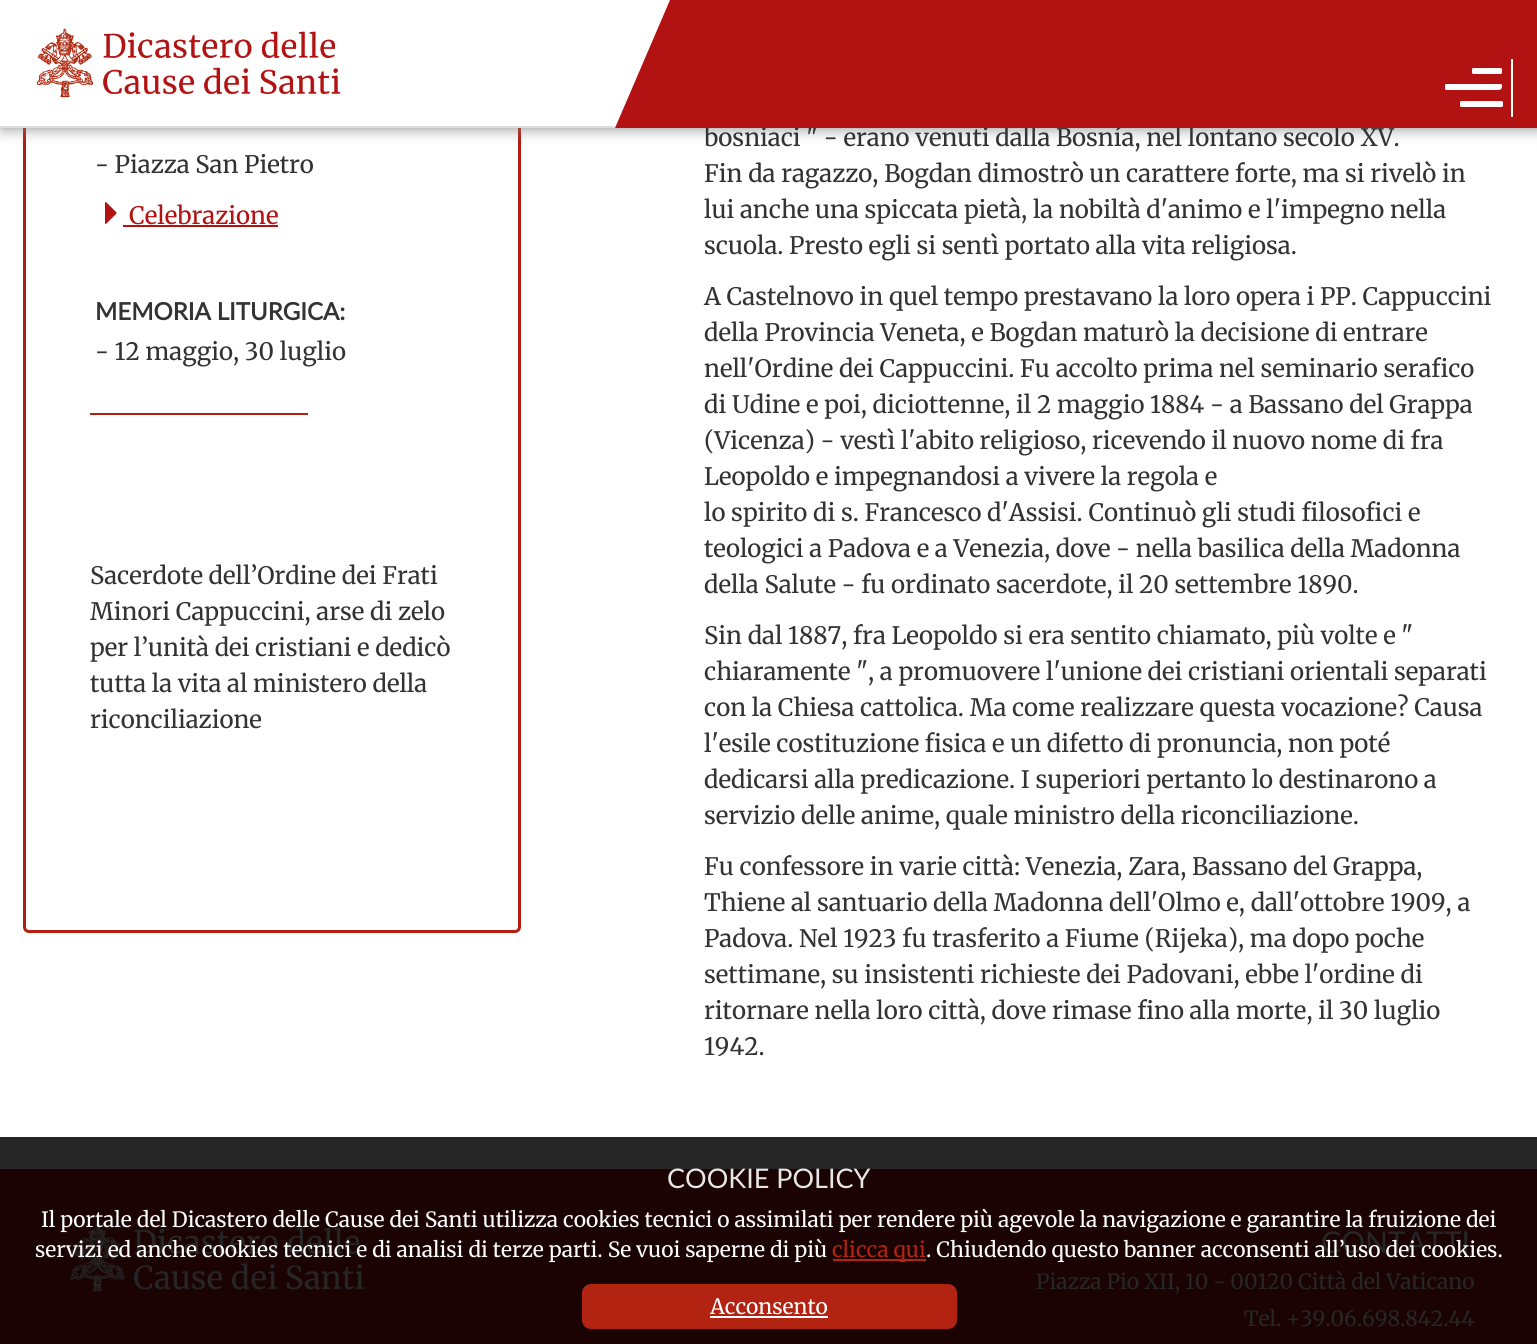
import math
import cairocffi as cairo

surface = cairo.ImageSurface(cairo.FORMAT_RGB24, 1537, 1344)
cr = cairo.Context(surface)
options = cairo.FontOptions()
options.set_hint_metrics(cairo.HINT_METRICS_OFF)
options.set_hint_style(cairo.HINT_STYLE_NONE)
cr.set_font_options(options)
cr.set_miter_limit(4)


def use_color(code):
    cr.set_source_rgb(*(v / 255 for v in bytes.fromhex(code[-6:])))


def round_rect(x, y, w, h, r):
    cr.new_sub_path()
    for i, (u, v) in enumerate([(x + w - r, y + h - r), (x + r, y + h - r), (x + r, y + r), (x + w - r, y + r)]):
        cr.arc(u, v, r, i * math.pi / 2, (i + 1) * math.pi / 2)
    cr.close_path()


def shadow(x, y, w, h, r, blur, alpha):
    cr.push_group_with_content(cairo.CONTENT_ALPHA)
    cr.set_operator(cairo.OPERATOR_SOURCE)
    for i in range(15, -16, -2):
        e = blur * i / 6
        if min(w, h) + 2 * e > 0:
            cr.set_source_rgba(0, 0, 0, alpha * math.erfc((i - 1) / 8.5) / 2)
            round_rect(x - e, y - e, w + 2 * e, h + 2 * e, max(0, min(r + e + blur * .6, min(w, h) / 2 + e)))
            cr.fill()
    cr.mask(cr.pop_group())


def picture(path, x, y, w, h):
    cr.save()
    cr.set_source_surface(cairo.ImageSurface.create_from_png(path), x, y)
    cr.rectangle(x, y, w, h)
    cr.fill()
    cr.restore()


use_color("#ffffff")
cr.paint()
use_color("#262626")
cr.rectangle(0, 1137, 1537, 32)
cr.fill()
round_rect(24.5, -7.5, 495, 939, 4.5)
use_color("#b21e10")
cr.set_line_width(3)
cr.stroke()
use_color("#7e7e7e")
shadow(2, 0, 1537, 128, 0, 7.5, 0.92)
use_color("#ffffff")
cr.rectangle(0, 0, 615, 126)
cr.fill()
use_color("#dddddd")
cr.rectangle(0, 126, 615, 2)
cr.fill()
picture("img1.png", 36, 28, 305, 70)
cr.select_font_face("Merriweather")
cr.set_font_size(24)
use_color("#333333")
cr.move_to(704, 146)
cr.show_text("bosniaci \" - erano venuti dalla Bosnía, nel lontano secolo XV.")
use_color("#b21212")
cr.rectangle(615, 0, 922, 128)
cr.fill()
use_color("#ffffff")
cr.new_path()
cr.move_to(615, 0)
cr.line_to(670, 0)
cr.line_to(615, 128)
cr.close_path()
cr.fill()
cr.rectangle(1511, 59, 2, 58)
cr.fill()
round_rect(1472, 68, 30, 6, 1.5)
cr.fill()
cr.new_path()
cr.move_to(1446.5, 84)
cr.line_to(1475, 84)
cr.line_to(1475, 90)
cr.line_to(1446.5, 90)
cr.curve_to(1445.5, 90, 1445, 89.5, 1445, 88.5)
cr.line_to(1445, 85.5)
cr.curve_to(1445, 84.5, 1445.5, 84, 1446.5, 84)
cr.close_path()
cr.fill()
cr.new_path()
cr.move_to(1472, 84)
cr.line_to(1500.5, 84)
cr.curve_to(1501.5, 84, 1502, 84.5, 1502, 85.5)
cr.line_to(1502, 87)
cr.curve_to(1502, 88.5, 1500.5, 90, 1499, 90)
cr.line_to(1472, 90)
cr.close_path()
cr.fill()
round_rect(1460, 101, 43, 6, 1.5)
cr.fill()
use_color("#333333")
cr.move_to(95, 173)
cr.show_text("- Piazza San Pietro")
picture("img2.png", 105, 202, 12, 22)
use_color("#b21212")
cr.move_to(129, 224)
cr.show_text("Celebrazione")
cr.rectangle(123, 225, 155, 2)
cr.fill()
cr.select_font_face("Lato", cairo.FONT_SLANT_NORMAL, cairo.FONT_WEIGHT_BOLD)
use_color("#333333")
cr.move_to(95, 320)
cr.show_text("MEMORIA LITURGICA:")
cr.select_font_face("Merriweather")
cr.move_to(95, 360)
cr.show_text("- 12 maggio, 30 luglio")
use_color("#b21e10")
cr.rectangle(90, 413, 218, 2)
cr.fill()
use_color("#333333")
cr.move_to(90, 584)
cr.show_text("Sacerdote dell’Ordine dei Frati")
cr.move_to(90, 620)
cr.show_text("Minori Cappuccini, arse di zelo")
cr.move_to(90, 656)
cr.show_text("per l’unità dei cristiani e dedicò")
cr.move_to(90, 692)
cr.show_text("tutta la vita al ministero della")
cr.move_to(90, 728)
cr.show_text("riconciliazione")
cr.move_to(704, 182)
cr.show_text("Fin da ragazzo, Bogdan dimostrò un carattere forte, ma si rivelò in")
cr.move_to(704, 218)
cr.show_text("lui anche una spiccata pietà, la nobiltà d'animo e l'impegno nella")
cr.move_to(704, 254)
cr.show_text("scuola. Presto egli si sentì portato alla vita religiosa.")
cr.move_to(704, 305)
cr.show_text("A Castelnovo in quel tempo prestavano la loro opera i PP. Cappuccini")
cr.move_to(704, 341)
cr.show_text("della Provincia Veneta, e Bogdan maturò la decisione di entrare")
cr.move_to(704, 377)
cr.show_text("nell'Ordine dei Cappuccini. Fu accolto prima nel seminario serafico")
cr.move_to(704, 413)
cr.show_text("di Udine e poi, diciottenne, il 2 maggio 1884 - a Bassano del Grappa")
cr.move_to(704, 449)
cr.show_text("(Vicenza) - vestì l'abito religioso, ricevendo il nuovo nome di fra")
cr.move_to(704, 485)
cr.show_text("Leopoldo e impegnandosi a vivere la regola e")
cr.move_to(704, 521)
cr.show_text("lo spirito di s. Francesco d'Assisi. Continuò gli studi filosofici e")
cr.move_to(704, 557)
cr.show_text("teologici a Padova e a Venezia, dove - nella basilica della Madonna")
cr.move_to(704, 593)
cr.show_text("della Salute - fu ordinato sacerdote, il 20 settembre 1890.")
cr.move_to(704, 644)
cr.show_text("Sin dal 1887, fra Leopoldo si era sentito chiamato, più volte e \"")
cr.move_to(704, 680)
cr.show_text("chiaramente \", a promuovere l'unione dei cristiani orientali separati")
cr.move_to(704, 716)
cr.show_text("con la Chiesa cattolica. Ma come realizzare questa vocazione? Causa")
cr.move_to(704, 752)
cr.show_text("l'esile costituzione fisica e un difetto di pronuncia, non poté")
cr.move_to(704, 788)
cr.show_text("dedicarsi alla predicazione. I superiori pertanto lo destinarono a")
cr.move_to(704, 824)
cr.show_text("servizio delle anime, quale ministro della riconciliazione.")
cr.move_to(704, 875)
cr.show_text("Fu confessore in varie città: Venezia, Zara, Bassano del Grappa,")
cr.move_to(704, 911)
cr.show_text("Thiene al santuario della Madonna dell'Olmo e, dall'ottobre 1909, a")
cr.move_to(704, 947)
cr.show_text("Padova. Nel 1923 fu trasferito a Fiume (Rijeka), ma dopo poche")
cr.move_to(704, 983)
cr.show_text("settimane, su insistenti richieste dei Padovani, ebbe l'ordine di")
cr.move_to(704, 1019)
cr.show_text("ritornare nella loro città, dove rimase fino alla morte, il 30 luglio")
cr.move_to(704, 1055)
cr.show_text("1942.")
use_color("#1b0303")
cr.rectangle(0, 1169, 1537, 175)
cr.fill()
cr.select_font_face("Lato")
cr.set_font_size(27)
use_color("#e6e6e6")
cr.move_to(667, 1188)
cr.show_text("COOKIE POLICY")
picture("img3.png", 70, 1224, 294, 68)
cr.select_font_face("Merriweather")
cr.set_font_size(21)
use_color("#ffffff")
cr.move_to(41, 1227)
cr.show_text("Il portale del Dicastero delle Cause dei Santi utilizza cookies tecnici o assimilati per rendere più agevole la navigazione e garantire la fruizione dei")
cr.move_to(35, 1257)
cr.show_text("servizi ed anche cookies tecnici e di analisi di terze parti. Se vuoi saperne di più")
use_color("#b22312")
cr.rectangle(833, 1259, 93, 2)
cr.fill()
cr.move_to(832, 1257)
cr.show_text("clicca qui")
cr.select_font_face("Lato")
cr.set_font_size(30)
use_color("#262626")
cr.move_to(1321, 1253)
cr.show_text("CONTATTI")
cr.select_font_face("Merriweather")
cr.set_font_size(21)
use_color("#ffffff")
cr.move_to(926, 1257)
cr.show_text(". Chiudendo questo banner acconsenti all’uso dei cookies.")
use_color("#b22312")
round_rect(583, 1285, 373, 43, 8)
cr.fill_preserve()
cr.set_line_width(2)
cr.stroke()
use_color("#ffffff")
cr.move_to(710, 1314)
cr.show_text("Acconsento")
cr.rectangle(710, 1316, 118, 2)
cr.fill()
use_color("#262626")
cr.move_to(1036, 1289)
cr.show_text("Piazza Pio XII, 10 - 00120 Città del Vaticano")
cr.move_to(1244, 1326)
cr.show_text("Tel. +39.06.698.842.44")
surface.write_to_png("result.png")
